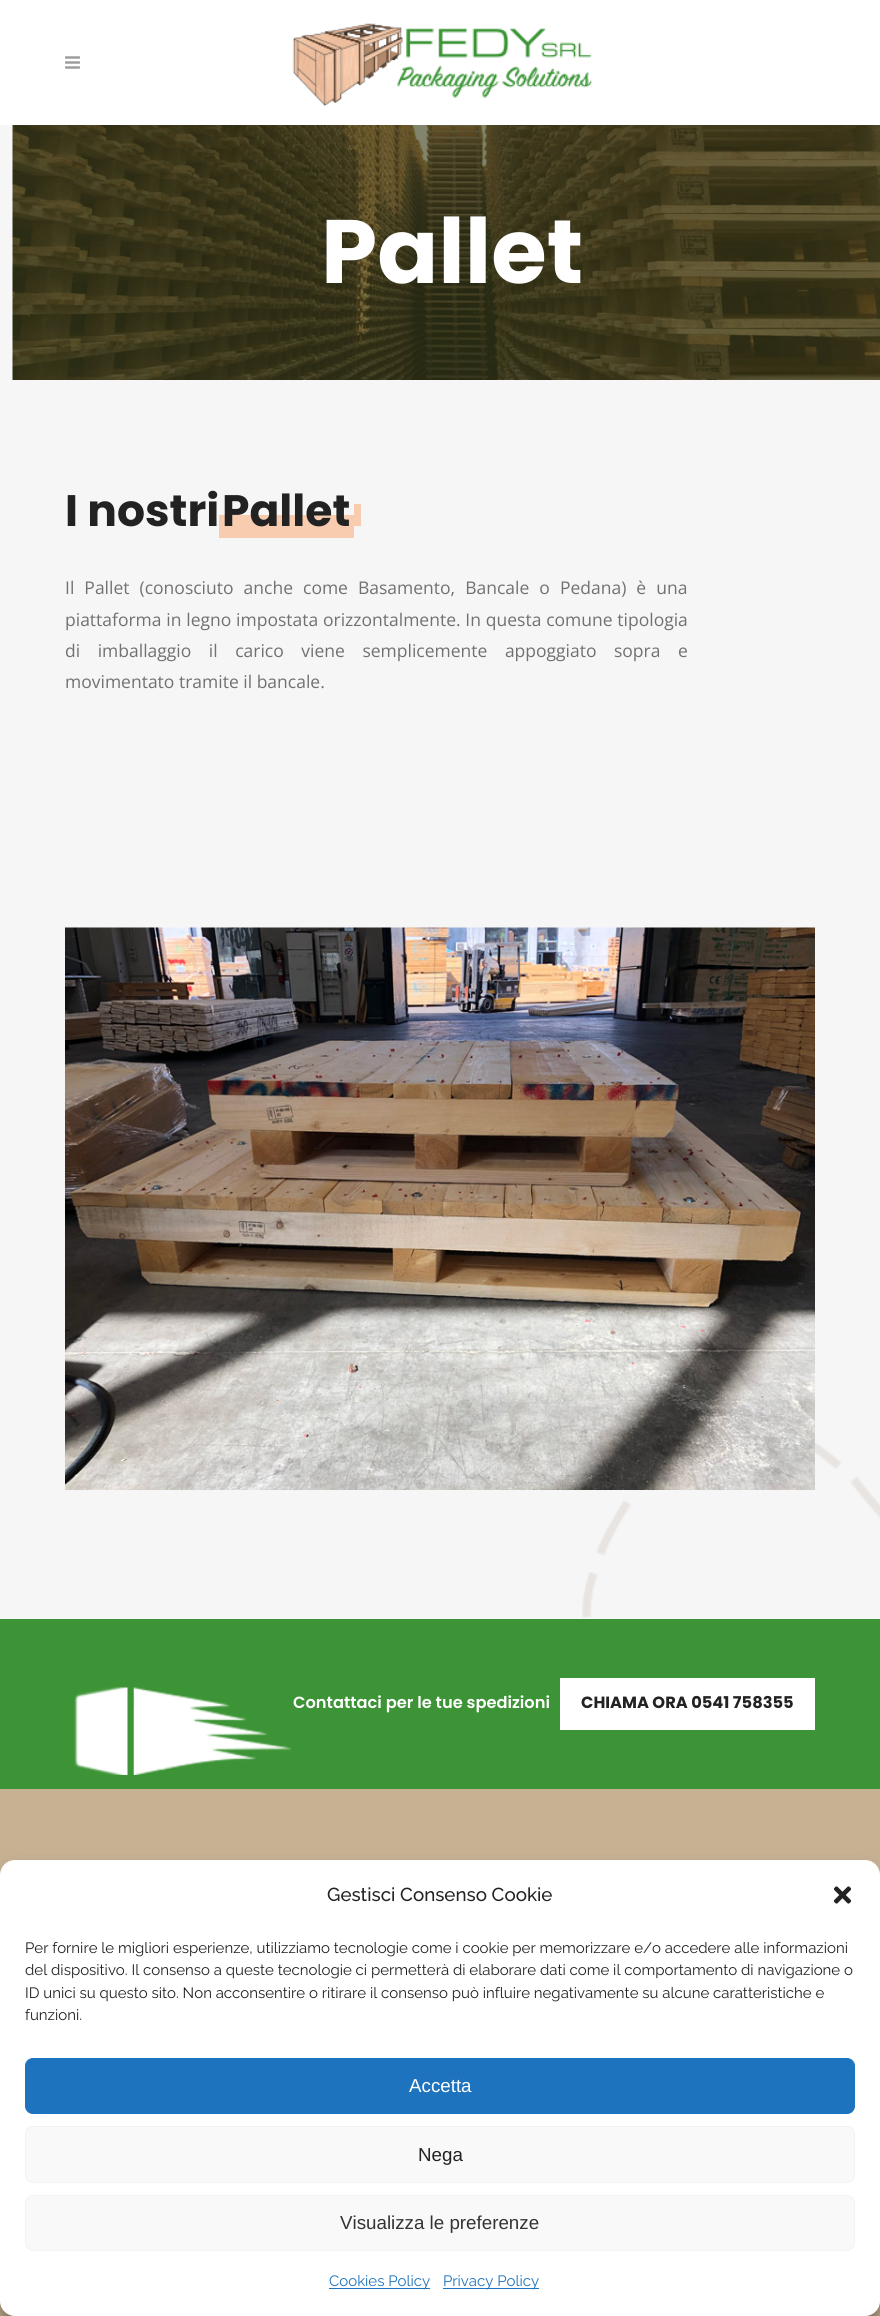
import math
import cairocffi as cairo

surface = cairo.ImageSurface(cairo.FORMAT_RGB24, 880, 2316)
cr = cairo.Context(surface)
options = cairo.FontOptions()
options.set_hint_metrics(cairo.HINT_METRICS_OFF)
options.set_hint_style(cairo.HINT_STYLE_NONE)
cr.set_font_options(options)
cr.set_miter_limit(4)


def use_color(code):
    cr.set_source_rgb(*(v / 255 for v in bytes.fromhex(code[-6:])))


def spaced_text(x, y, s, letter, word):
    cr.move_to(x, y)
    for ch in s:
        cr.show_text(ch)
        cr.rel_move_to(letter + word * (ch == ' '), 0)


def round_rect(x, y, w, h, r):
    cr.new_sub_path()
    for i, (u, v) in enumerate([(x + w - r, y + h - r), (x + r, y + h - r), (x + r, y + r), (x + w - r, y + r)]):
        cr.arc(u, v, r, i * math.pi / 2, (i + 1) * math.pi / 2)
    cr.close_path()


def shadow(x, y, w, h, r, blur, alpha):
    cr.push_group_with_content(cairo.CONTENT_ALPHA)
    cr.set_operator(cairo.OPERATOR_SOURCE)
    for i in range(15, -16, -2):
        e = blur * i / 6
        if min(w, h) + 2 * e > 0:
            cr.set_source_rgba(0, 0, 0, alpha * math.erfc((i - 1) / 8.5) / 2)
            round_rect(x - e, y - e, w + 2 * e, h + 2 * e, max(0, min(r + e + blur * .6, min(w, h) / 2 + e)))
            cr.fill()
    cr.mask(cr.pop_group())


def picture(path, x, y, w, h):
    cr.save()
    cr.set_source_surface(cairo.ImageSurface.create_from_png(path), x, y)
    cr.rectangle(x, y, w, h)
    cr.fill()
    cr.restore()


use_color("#f6f6f6")
cr.paint()
use_color("#ffffff")
cr.rectangle(0, 0, 880, 125)
cr.fill()
picture("img1.png", 65, 56, 15, 13)
picture("img2.png", 292, 23, 300, 84)
picture("img3.png", 12, 125, 868, 255)
cr.select_font_face("Poppins", cairo.FONT_SLANT_NORMAL, cairo.FONT_WEIGHT_BOLD)
cr.set_font_size(90)
cr.move_to(321, 283)
cr.show_text("Pallet")
picture("img4.png", 582, 1441, 298, 177)
cr.set_font_size(44)
use_color("#222222")
cr.move_to(65, 526)
cr.show_text("I nostri")
use_color("#f8ccae")
cr.rectangle(219, 515, 135, 23)
cr.fill()
use_color("#222222")
cr.move_to(222, 526)
cr.show_text("Pallet")
use_color("#f8ccae")
cr.rectangle(354, 504, 7, 22)
cr.fill()
cr.select_font_face("Open Sans")
cr.set_font_size(17.5)
use_color("#717171")
spaced_text(65, 594, "Il Pallet (conosciuto anche come Basamento, Bancale o Pedana) è una", 0, 5.5)
spaced_text(65, 626, "piattaforma in legno impostata orizzontalmente. In questa comune tipologia", 0, 0.25)
spaced_text(65, 657, "di imballaggio il carico viene semplicemente appoggiato sopra e", 0, 13)
cr.move_to(65, 688)
cr.show_text("movimentato tramite il bancale.")
picture("img5.png", 65, 927, 750, 563)
use_color("#3d9436")
cr.rectangle(0, 1619, 880, 170)
cr.fill()
picture("img6.png", 74, 1687, 218, 88)
cr.select_font_face("Poppins SemiBold")
cr.set_font_size(16.25)
use_color("#ffffff")
cr.move_to(293, 1708)
cr.show_text("Contattaci per le tue spedizioni")
cr.rectangle(560, 1678, 255, 52)
cr.fill()
cr.select_font_face("Poppins", cairo.FONT_SLANT_NORMAL, cairo.FONT_WEIGHT_BOLD)
use_color("#222222")
cr.move_to(581, 1708)
cr.show_text("CHIAMA ORA 0541 758355")
use_color("#c7b193")
cr.rectangle(0, 1789, 880, 527)
cr.fill()
use_color("#000000")
shadow(0, 1868, 880, 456, 15, 4, 0.23)
shadow(0, 1873, 880, 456, 15, 12.5, 0.19)
use_color("#ffffff")
round_rect(0, 1860, 880, 456, 15)
cr.fill()
cr.select_font_face("Raleway Medium")
cr.set_font_size(18.75)
use_color("#222222")
cr.move_to(327, 1901)
cr.show_text("Gestisci Consenso Cookie")
picture("img7.png", 833, 1886, 19, 18)
cr.select_font_face("Raleway")
cr.set_font_size(15)
cr.move_to(25, 1953)
cr.show_text("Per fornire le migliori esperienze, utilizziamo tecnologie come i cookie per memorizzare e/o accedere alle informazioni")
cr.move_to(25, 1975)
cr.show_text("del dispositivo. Il consenso a queste tecnologie ci permetterà di elaborare dati come il comportamento di navigazione o")
cr.move_to(25, 1998)
cr.show_text("ID unici su questo sito. Non acconsentire o ritirare il consenso può influire negativamente su alcune caratteristiche e")
cr.move_to(25, 2020)
cr.show_text("funzioni.")
use_color("#1e73be")
round_rect(25.5, 2058.5, 829, 55, 7.5)
cr.fill_preserve()
cr.set_line_width(1)
cr.stroke()
cr.select_font_face("Liberation Sans")
cr.set_font_size(18.75)
use_color("#ffffff")
cr.move_to(409, 2092)
cr.show_text("Accetta")
use_color("#f9f9f9")
round_rect(25.5, 2126.5, 829, 56, 7.5)
cr.fill_preserve()
use_color("#f2f2f2")
cr.stroke()
use_color("#222222")
cr.move_to(418, 2161)
cr.show_text("Nega")
use_color("#f9f9f9")
round_rect(25.5, 2195.5, 829, 55, 7.5)
cr.fill_preserve()
use_color("#f2f2f2")
cr.stroke()
use_color("#333333")
cr.move_to(340, 2229)
cr.show_text("Visualizza le preferenze")
use_color("#1e73be")
cr.rectangle(329, 2288, 101, 1)
cr.fill()
cr.select_font_face("Raleway")
cr.set_font_size(15)
cr.move_to(329, 2286)
cr.show_text("Cookies Policy")
cr.rectangle(443, 2288, 96, 1)
cr.fill()
cr.move_to(443, 2286)
cr.show_text("Privacy Policy")
surface.write_to_png("result.png")
